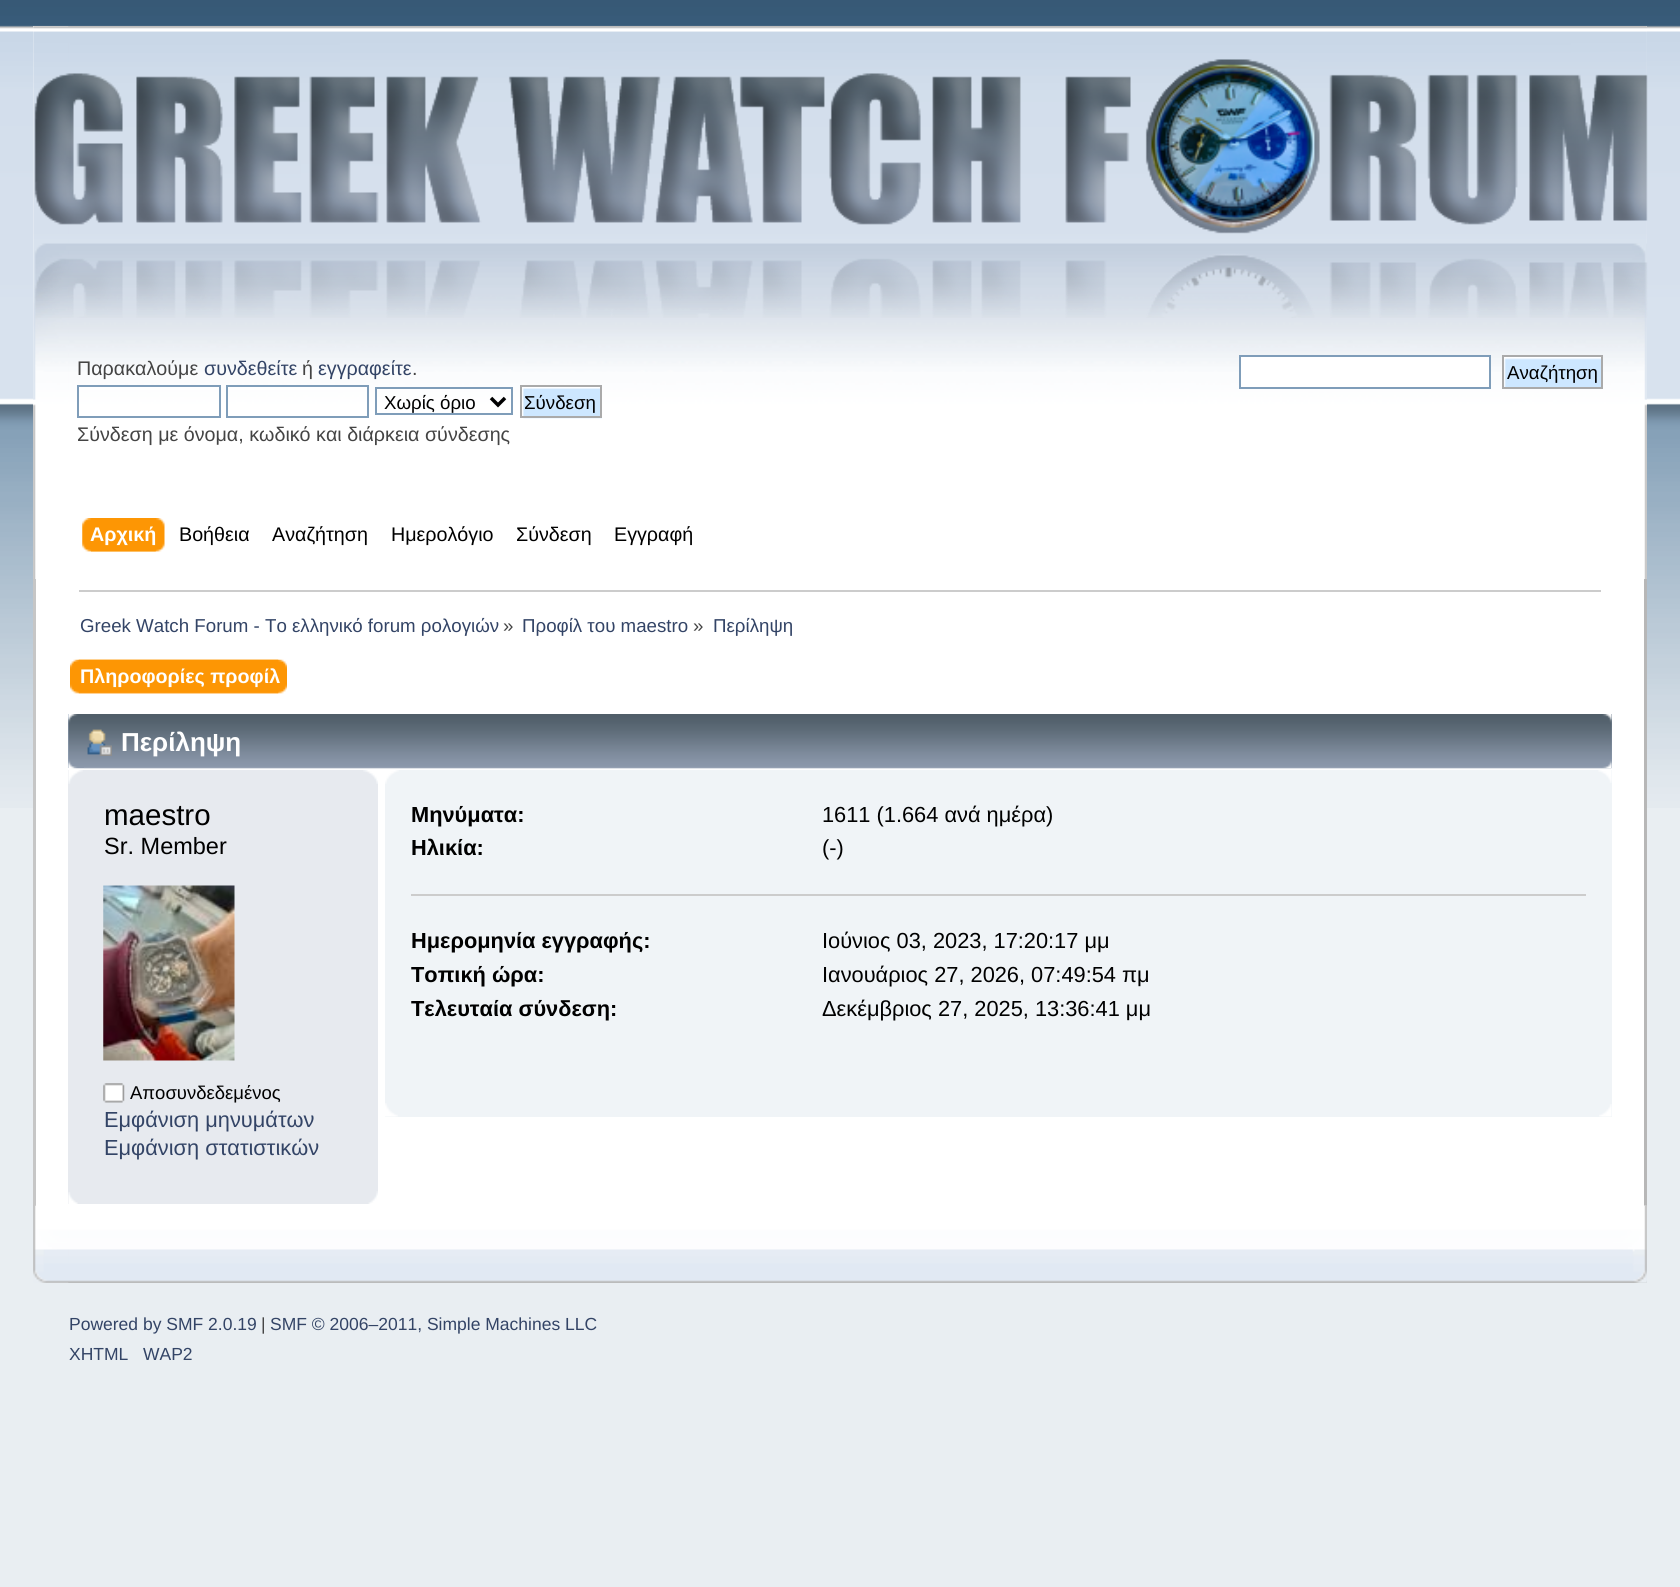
import math
import cairocffi as cairo

surface = cairo.ImageSurface(cairo.FORMAT_RGB24, 1680, 1587)
cr = cairo.Context(surface)
options = cairo.FontOptions()
options.set_hint_metrics(cairo.HINT_METRICS_OFF)
options.set_hint_style(cairo.HINT_STYLE_NONE)
cr.set_font_options(options)
cr.set_miter_limit(4)


def use_color(code):
    cr.set_source_rgb(*(v / 255 for v in bytes.fromhex(code[-6:])))


def picture(path, x, y, w, h):
    cr.save()
    cr.set_source_surface(cairo.ImageSurface.create_from_png(path), x, y)
    cr.rectangle(x, y, w, h)
    cr.fill()
    cr.restore()


use_color("#e9eef2")
cr.paint()
picture("img1.png", 0, 0, 1680, 808)
use_color("#fefefe")
cr.rectangle(33, 26, 1614, 553)
cr.fill()
picture("img2.png", 33, 26, 1614, 553)
picture("img3.png", 68, 26, 1579, 553)
picture("img4.png", 34, 59, 1614, 259)
cr.select_font_face("Liberation Sans")
cr.set_font_size(19.7)
use_color("#444444")
cr.move_to(77, 375)
cr.show_text("Παρακαλούμε")
use_color("#334466")
cr.move_to(204, 375)
cr.show_text("συνδεθείτε")
use_color("#444444")
cr.move_to(302, 375)
cr.show_text("ή")
use_color("#334466")
cr.move_to(318, 375)
cr.show_text("εγγραφείτε")
use_color("#444444")
cr.move_to(412, 375)
cr.show_text(".")
use_color("#ffffff")
cr.rectangle(79, 387, 140, 3)
cr.fill()
cr.rectangle(78, 386, 142, 31)
use_color("#7f9db9")
cr.stroke()
use_color("#ffffff")
cr.rectangle(228, 387, 139, 3)
cr.fill()
cr.rectangle(227, 386, 141, 31)
use_color("#7f9db9")
cr.stroke()
use_color("#ffffff")
cr.rectangle(377, 389, 133, 1)
cr.fill()
cr.rectangle(376, 388, 136, 26)
use_color("#7f9db9")
cr.stroke()
cr.new_path()
cr.move_to(491, 398)
cr.line_to(498, 405)
cr.line_to(505, 398)
use_color("#000000")
cr.set_line_width(3.5)
cr.stroke()
cr.set_font_size(18.7)
cr.move_to(384, 409)
cr.show_text("Χωρίς όριο")
picture("img5.png", 521, 387, 81, 32)
cr.rectangle(521, 386, 80, 31)
use_color("#aaaaaa")
cr.set_line_width(2)
cr.stroke()
use_color("#000000")
cr.move_to(524, 409)
cr.show_text("Σύνδεση")
cr.set_font_size(19.7)
use_color("#444444")
cr.move_to(77, 441)
cr.show_text("Σύνδεση με όνομα, κωδικό και διάρκεια σύνδεσης")
use_color("#ffffff")
cr.rectangle(1240, 356, 250, 32)
cr.fill_preserve()
use_color("#7f9db9")
cr.stroke()
picture("img6.png", 1504, 357, 97, 30)
cr.rectangle(1503, 356, 99, 32)
use_color("#aaaaaa")
cr.stroke()
cr.set_font_size(18.7)
use_color("#000000")
cr.move_to(1507, 379)
cr.show_text("Αναζήτηση")
picture("img7.png", 91, 518, 74, 34)
picture("img8.png", 82, 518, 74, 34)
cr.select_font_face("Liberation Sans", cairo.FONT_SLANT_NORMAL, cairo.FONT_WEIGHT_BOLD)
cr.set_font_size(19.7)
use_color("#ffffff")
cr.move_to(90, 541)
cr.show_text("Αρχική")
cr.select_font_face("Liberation Sans")
use_color("#000000")
cr.move_to(179, 541)
cr.show_text("Βοήθεια")
cr.move_to(272, 541)
cr.show_text("Αναζήτηση")
cr.move_to(391, 541)
cr.show_text("Ημερολόγιο")
cr.move_to(516, 541)
cr.show_text("Σύνδεση")
cr.move_to(614, 541)
cr.show_text("Εγγραφή")
use_color("#ffffff")
cr.rectangle(36, 579, 1608, 627)
cr.fill()
use_color("#c6c6c6")
cr.rectangle(33, 579, 3, 627)
cr.fill()
use_color("#b7b7b7")
cr.rectangle(1644, 579, 3, 627)
cr.fill()
use_color("#cccccc")
cr.rectangle(79, 590, 1522, 2)
cr.fill()
cr.set_font_size(18.7)
use_color("#334466")
cr.move_to(80, 632)
cr.show_text("Greek Watch Forum - Το ελληνικό forum ρολογιών")
use_color("#444444")
cr.move_to(503, 632)
cr.show_text("»")
use_color("#334466")
cr.move_to(522, 632)
cr.show_text("Προφίλ του maestro")
use_color("#444444")
cr.move_to(693, 632)
cr.show_text("»")
use_color("#334466")
cr.move_to(713, 632)
cr.show_text("Περίληψη")
picture("img9.png", 78, 659, 209, 35)
picture("img10.png", 70, 659, 209, 35)
cr.select_font_face("Liberation Sans", cairo.FONT_SLANT_NORMAL, cairo.FONT_WEIGHT_BOLD)
cr.set_font_size(19.7)
use_color("#ffffff")
cr.move_to(80, 683)
cr.show_text("Πληροφορίες προφίλ")
use_color("#99abbf")
cr.rectangle(68, 714, 1544, 54)
cr.fill()
picture("img11.png", 68, 714, 1544, 55)
picture("img12.png", 84, 714, 1528, 55)
picture("img13.png", 87, 729, 25, 27)
cr.set_font_size(26)
use_color("#ffffff")
cr.move_to(121, 751)
cr.show_text("Περίληψη")
use_color("#e7eaef")
cr.rectangle(68, 770, 310, 434)
cr.fill()
picture("img14.png", 68, 770, 15, 14)
picture("img15.png", 363, 770, 15, 14)
cr.select_font_face("Liberation Sans")
cr.set_font_size(29.5)
use_color("#000000")
cr.move_to(104, 825)
cr.show_text("maestro")
cr.set_font_size(23.5)
cr.move_to(104, 854)
cr.show_text("Sr. Member")
picture("img16.png", 103, 885, 132, 176)
picture("img17.png", 103, 1083, 22, 20)
cr.set_font_size(18.5)
cr.move_to(130, 1099)
cr.show_text("Αποσυνδεδεμένος")
cr.set_font_size(21.8)
use_color("#334466")
cr.move_to(104, 1127)
cr.show_text("Εμφάνιση μηνυμάτων")
cr.move_to(104, 1155)
cr.show_text("Εμφάνιση στατιστικών")
picture("img18.png", 68, 1192, 10, 12)
picture("img19.png", 368, 1191, 10, 13)
use_color("#f0f4f7")
cr.rectangle(385, 770, 1227, 347)
cr.fill()
picture("img20.png", 385, 770, 14, 14)
picture("img21.png", 1598, 770, 14, 13)
use_color("#cccccc")
cr.rectangle(411, 894, 1175, 2)
cr.fill()
cr.select_font_face("Liberation Sans", cairo.FONT_SLANT_NORMAL, cairo.FONT_WEIGHT_BOLD)
use_color("#000000")
cr.move_to(411, 822)
cr.show_text("Μηνύματα:")
cr.select_font_face("Liberation Sans")
cr.move_to(822, 822)
cr.show_text("1611 (1.664 ανά ημέρα)")
cr.select_font_face("Liberation Sans", cairo.FONT_SLANT_NORMAL, cairo.FONT_WEIGHT_BOLD)
cr.move_to(411, 855)
cr.show_text("Ηλικία:")
cr.select_font_face("Liberation Sans")
cr.move_to(822, 855)
cr.show_text("(-)")
cr.select_font_face("Liberation Sans", cairo.FONT_SLANT_NORMAL, cairo.FONT_WEIGHT_BOLD)
cr.move_to(411, 948)
cr.show_text("Ημερομηνία εγγραφής:")
cr.select_font_face("Liberation Sans")
cr.move_to(822, 948)
cr.show_text("Ιούνιος 03, 2023, 17:20:17 μμ")
cr.select_font_face("Liberation Sans", cairo.FONT_SLANT_NORMAL, cairo.FONT_WEIGHT_BOLD)
cr.move_to(411, 982)
cr.show_text("Τοπική ώρα:")
cr.select_font_face("Liberation Sans")
cr.move_to(822, 982)
cr.show_text("Ιανουάριος 27, 2026, 07:49:54 πμ")
cr.select_font_face("Liberation Sans", cairo.FONT_SLANT_NORMAL, cairo.FONT_WEIGHT_BOLD)
cr.move_to(411, 1016)
cr.show_text("Τελευταία σύνδεση:")
cr.select_font_face("Liberation Sans")
cr.move_to(822, 1016)
cr.show_text("Δεκέμβριος 27, 2025, 13:36:41 μμ")
picture("img22.png", 385, 1103, 13, 14)
picture("img23.png", 1599, 1104, 13, 13)
picture("img24.png", 33, 1205, 1614, 78)
picture("img25.png", 68, 1205, 1579, 78)
cr.set_font_size(17.5)
use_color("#334466")
cr.move_to(69, 1330)
cr.show_text("Powered by SMF 2.0.19")
use_color("#444444")
cr.move_to(261, 1330)
cr.show_text("|")
use_color("#334466")
cr.move_to(270, 1330)
cr.show_text("SMF © 2006–2011, Simple Machines LLC")
cr.move_to(69, 1360)
cr.show_text("XHTML")
cr.move_to(143, 1360)
cr.show_text("WAP2")
surface.write_to_png("result.png")
